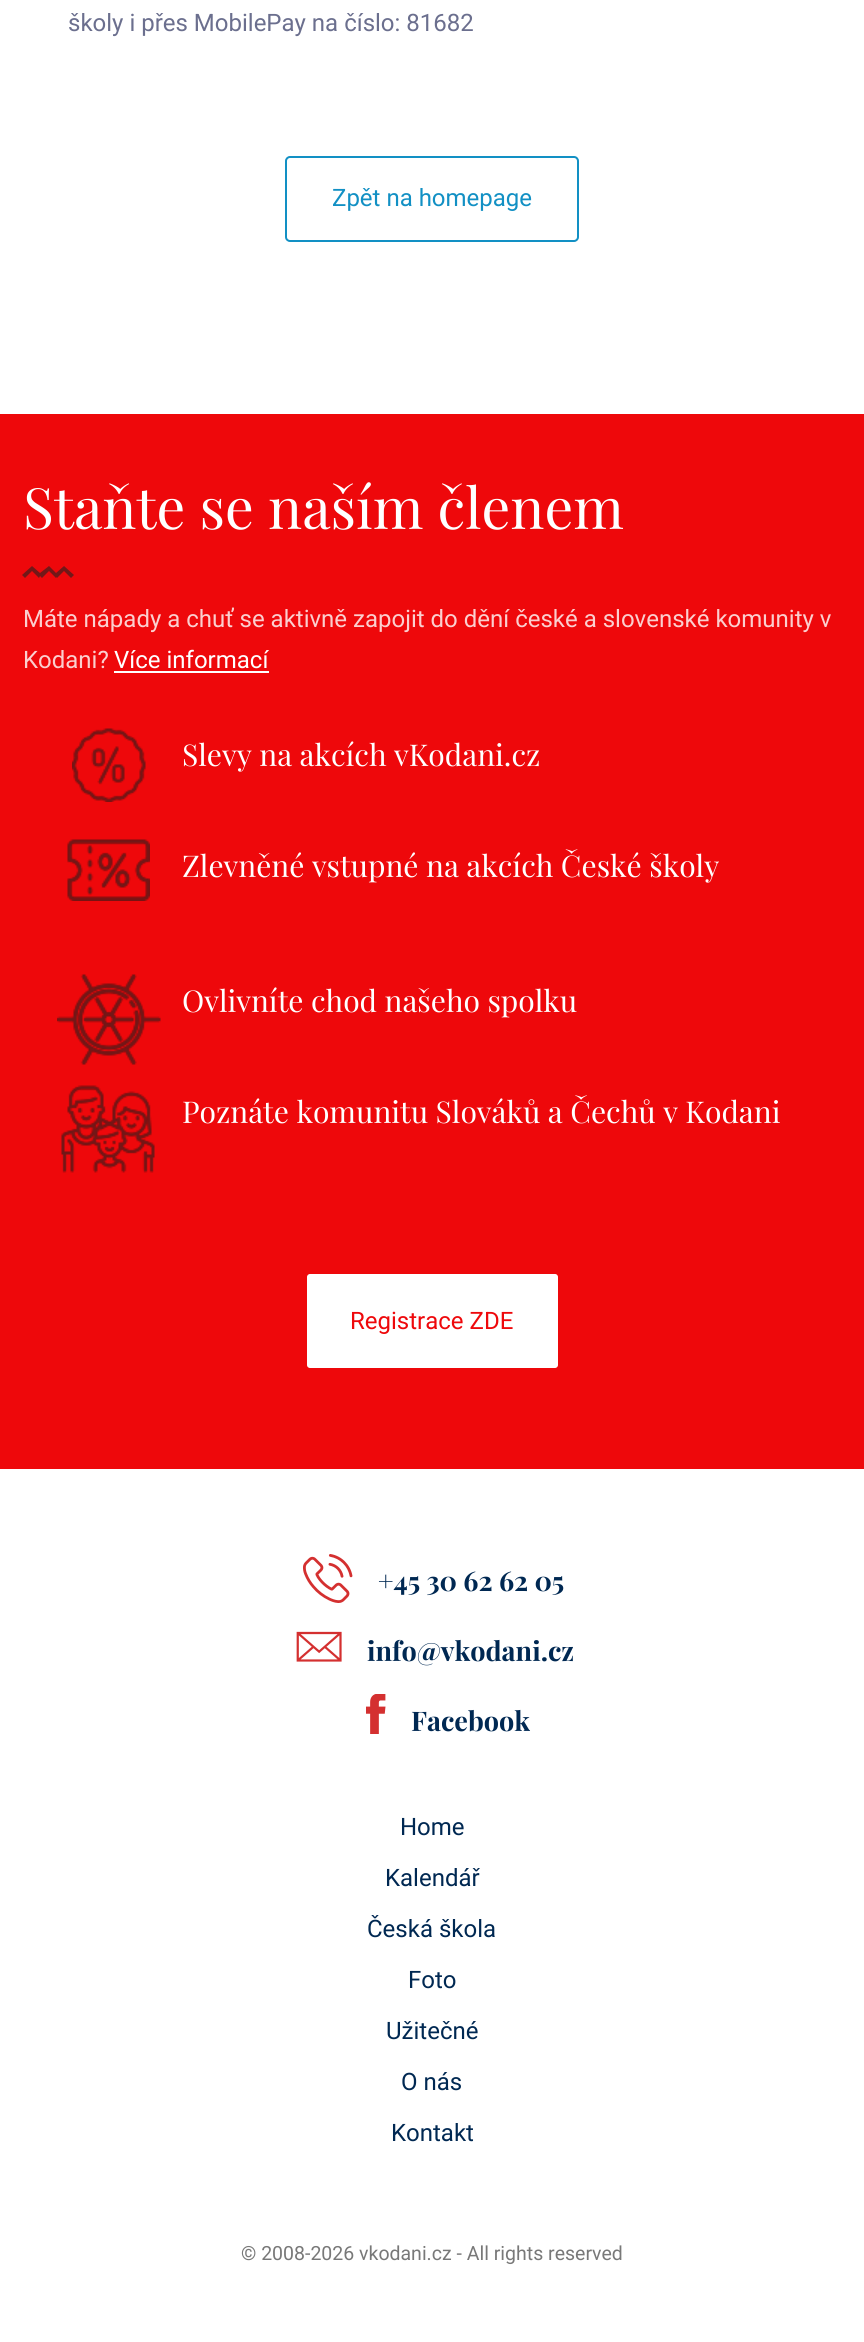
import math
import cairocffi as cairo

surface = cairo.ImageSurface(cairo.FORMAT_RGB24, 864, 2342)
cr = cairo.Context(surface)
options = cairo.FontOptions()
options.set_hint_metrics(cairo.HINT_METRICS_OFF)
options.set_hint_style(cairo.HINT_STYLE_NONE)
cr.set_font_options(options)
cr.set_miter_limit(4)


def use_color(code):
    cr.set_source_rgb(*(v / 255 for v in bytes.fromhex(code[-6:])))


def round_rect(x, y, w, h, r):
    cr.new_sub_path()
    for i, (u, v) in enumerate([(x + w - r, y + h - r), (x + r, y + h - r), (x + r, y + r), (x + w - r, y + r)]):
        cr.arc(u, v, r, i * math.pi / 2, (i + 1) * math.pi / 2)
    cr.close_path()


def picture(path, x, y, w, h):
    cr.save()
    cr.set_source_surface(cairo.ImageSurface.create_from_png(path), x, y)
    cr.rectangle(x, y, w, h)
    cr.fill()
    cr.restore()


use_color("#ffffff")
cr.paint()
cr.select_font_face("Roboto")
cr.set_font_size(24)
use_color("#6b6f8e")
cr.move_to(68, 31)
cr.show_text("školy i přes MobilePay na číslo: 81682")
round_rect(286, 157, 292, 84, 4)
use_color("#1290c4")
cr.stroke()
cr.move_to(332, 206)
cr.show_text("Zpět na homepage")
use_color("#ee080b")
cr.rectangle(0, 414, 864, 1055)
cr.fill()
cr.select_font_face("Playfair Display")
cr.set_font_size(57)
use_color("#ffffff")
cr.move_to(23, 529)
cr.show_text("Staňte se naším členem")
use_color("#721818")
cr.new_path()
cr.move_to(32, 566)
cr.line_to(22, 575)
cr.line_to(25, 578)
cr.line_to(32, 571)
cr.line_to(39, 578)
cr.line_to(40, 576)
cr.line_to(42, 578)
cr.line_to(49, 571)
cr.line_to(56, 578)
cr.line_to(56, 577)
cr.line_to(57, 578)
cr.line_to(64, 571)
cr.line_to(71, 578)
cr.line_to(74, 575)
cr.line_to(64, 566)
cr.line_to(56, 573)
cr.line_to(49, 566)
cr.line_to(40, 573)
cr.close_path()
cr.fill()
cr.select_font_face("Roboto")
cr.set_font_size(24)
use_color("#fbcfcf")
cr.move_to(23, 627)
cr.show_text("Máte nápady a chuť se aktivně zapojit do dění české a slovenské komunity v")
cr.move_to(23, 668)
cr.show_text("Kodani?")
use_color("#ffffff")
cr.move_to(114, 668)
cr.show_text("Více informací")
cr.rectangle(114, 671, 155, 2)
cr.fill()
picture("img1.png", 72, 728, 74, 74)
cr.select_font_face("Playfair Display")
cr.set_font_size(30)
cr.move_to(182, 766)
cr.show_text("Slevy na akcích vKodani.cz")
picture("img2.png", 67, 839, 83, 62)
cr.move_to(182, 877)
cr.show_text("Zlevněné vstupné na akcích České školy")
picture("img3.png", 57, 974, 104, 91)
cr.move_to(182, 1012)
cr.show_text("Ovlivníte chod našeho spolku")
picture("img4.png", 61, 1085, 94, 88)
cr.move_to(182, 1123)
cr.show_text("Poznáte komunitu Slováků a Čechů v Kodani")
round_rect(306, 1273, 253, 96, 4)
cr.fill_preserve()
use_color("#ee080b")
cr.stroke()
cr.select_font_face("Roboto")
cr.set_font_size(24)
cr.move_to(350, 1329)
cr.show_text("Registrace ZDE")
picture("img5.png", 303, 1554, 50, 49)
cr.select_font_face("Playfair Display", cairo.FONT_SLANT_NORMAL, cairo.FONT_WEIGHT_BOLD)
cr.set_font_size(27)
use_color("#002852")
cr.move_to(378, 1591)
cr.show_text("+45 30 62 62 05")
picture("img6.png", 296, 1631, 46, 31)
cr.move_to(367, 1661)
cr.show_text("info@vkodani.cz")
picture("img7.png", 366, 1694, 20, 40)
cr.move_to(411, 1731)
cr.show_text("Facebook")
cr.select_font_face("Roboto")
cr.set_font_size(24)
cr.move_to(400, 1835)
cr.show_text("Home")
cr.move_to(385, 1886)
cr.show_text("Kalendář")
cr.move_to(367, 1937)
cr.show_text("Česká škola")
cr.move_to(408, 1988)
cr.show_text("Foto")
cr.move_to(386, 2039)
cr.show_text("Užitečné")
cr.move_to(401, 2090)
cr.show_text("O nás")
cr.move_to(391, 2141)
cr.show_text("Kontakt")
cr.set_font_size(19.5)
use_color("#787878")
cr.move_to(241, 2260)
cr.show_text("© 2008-2026 vkodani.cz - All rights reserved")
surface.write_to_png("result.png")
